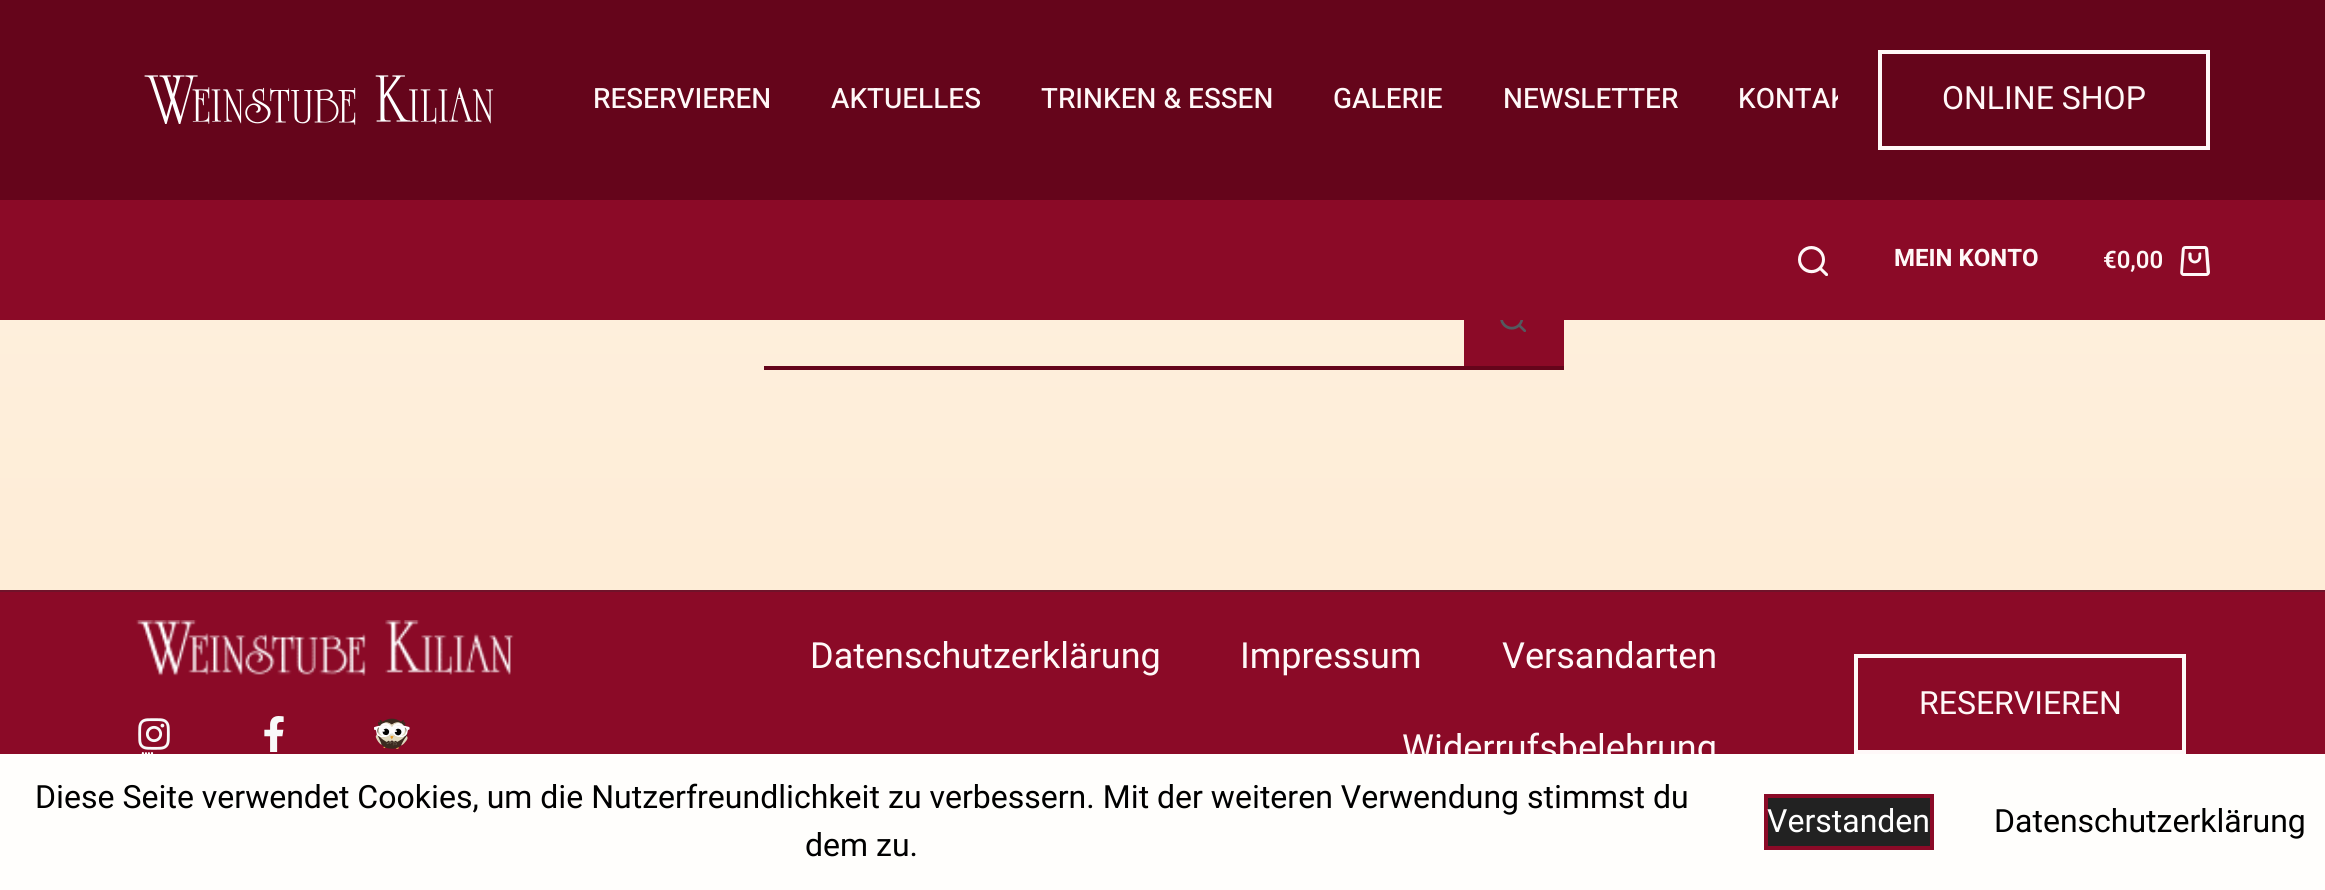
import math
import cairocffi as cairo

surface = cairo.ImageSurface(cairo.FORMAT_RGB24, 2325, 890)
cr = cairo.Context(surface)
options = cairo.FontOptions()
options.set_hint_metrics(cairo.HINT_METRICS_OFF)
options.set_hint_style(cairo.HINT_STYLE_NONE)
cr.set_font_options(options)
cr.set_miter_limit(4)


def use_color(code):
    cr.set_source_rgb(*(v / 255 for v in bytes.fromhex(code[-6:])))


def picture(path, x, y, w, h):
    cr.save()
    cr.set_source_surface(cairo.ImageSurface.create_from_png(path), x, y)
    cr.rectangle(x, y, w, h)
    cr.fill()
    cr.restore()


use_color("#ffffff")
cr.paint()
gradient = cairo.LinearGradient(1163, -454, 1163, 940)
gradient.add_color_stop_rgba(0, 0.992, 0.961, 0.922, 1)
gradient.add_color_stop_rgba(0.88, 0.996, 0.922, 0.827, 1)
cr.set_source(gradient)
cr.rectangle(0, 320, 2325, 270)
cr.fill()
use_color("#65051b")
cr.rectangle(0, 0, 2325, 200)
cr.fill()
picture("img1.png", 144, 75, 350, 50)
cr.select_font_face("Heebo Medium")
cr.set_font_size(28)
use_color("#fff8f8")
cr.move_to(593, 108)
cr.show_text("RESERVIEREN")
cr.move_to(831, 108)
cr.show_text("AKTUELLES")
cr.move_to(1041, 108)
cr.show_text("TRINKEN & ESSEN")
cr.move_to(1333, 108)
cr.show_text("GALERIE")
cr.move_to(1503, 108)
cr.show_text("NEWSLETTER")
cr.save()
cr.rectangle(562, 0, 1276, 200)
cr.clip()
cr.move_to(1738, 108)
cr.show_text("KONTAK")
cr.restore()
cr.rectangle(1880, 52, 328, 96)
cr.set_line_width(4)
cr.stroke()
cr.select_font_face("Heebo")
cr.set_font_size(32)
cr.move_to(1942, 109)
cr.show_text("ONLINE SHOP")
use_color("#8b0a27")
cr.rectangle(0, 200, 2325, 120)
cr.fill()
picture("img2.png", 1798, 246, 30, 30)
cr.select_font_face("Heebo", cairo.FONT_SLANT_NORMAL, cairo.FONT_WEIGHT_BOLD)
cr.set_font_size(24)
use_color("#fff8f8")
cr.move_to(1894, 266)
cr.show_text("MEIN KONTO")
cr.select_font_face("Heebo SemiBold")
cr.move_to(2103, 268)
cr.show_text("€0,00")
picture("img3.png", 2180, 246, 30, 30)
use_color("#8b0a27")
cr.rectangle(1464, 320, 100, 46)
cr.fill()
picture("img4.png", 1500, 320, 26, 12)
use_color("#65051b")
cr.rectangle(764, 366, 800, 4)
cr.fill()
use_color("#8b0a27")
cr.rectangle(0, 592, 2325, 162)
cr.fill()
use_color("#70132a")
cr.rectangle(0, 590, 2325, 2)
cr.fill()
picture("img5.png", 136, 620, 378, 56)
picture("img6.png", 138, 718, 32, 32)
picture("img7.png", 264, 716, 20, 36)
picture("img8.png", 374, 718, 36, 31)
picture("img9.png", 141, 752, 13, 2)
cr.select_font_face("Heebo")
cr.set_font_size(36)
use_color("#fff8f8")
cr.move_to(810, 668)
cr.show_text("Datenschutzerklärung")
cr.move_to(1240, 668)
cr.show_text("Impressum")
cr.move_to(1502, 668)
cr.show_text("Versandarten")
cr.move_to(1402, 760)
cr.show_text("Widerrufsbelehrung")
cr.rectangle(1856, 656, 328, 96)
cr.stroke()
cr.set_font_size(32)
cr.move_to(1919, 714)
cr.show_text("RESERVIEREN")
use_color("#fffefc")
cr.rectangle(0, 754, 2325, 136)
cr.fill()
use_color("#000000")
cr.move_to(35, 808)
cr.show_text("Diese Seite verwendet Cookies, um die Nutzerfreundlichkeit zu verbessern. Mit der weiteren Verwendung stimmst du")
cr.move_to(805, 856)
cr.show_text("dem zu.")
use_color("#222222")
cr.rectangle(1766, 796, 166, 52)
cr.fill_preserve()
use_color("#8b0a27")
cr.stroke()
use_color("#ffffff")
cr.move_to(1767, 832)
cr.show_text("Verstanden")
use_color("#000000")
cr.move_to(1994, 832)
cr.show_text("Datenschutzerklärung")
surface.write_to_png("result.png")
